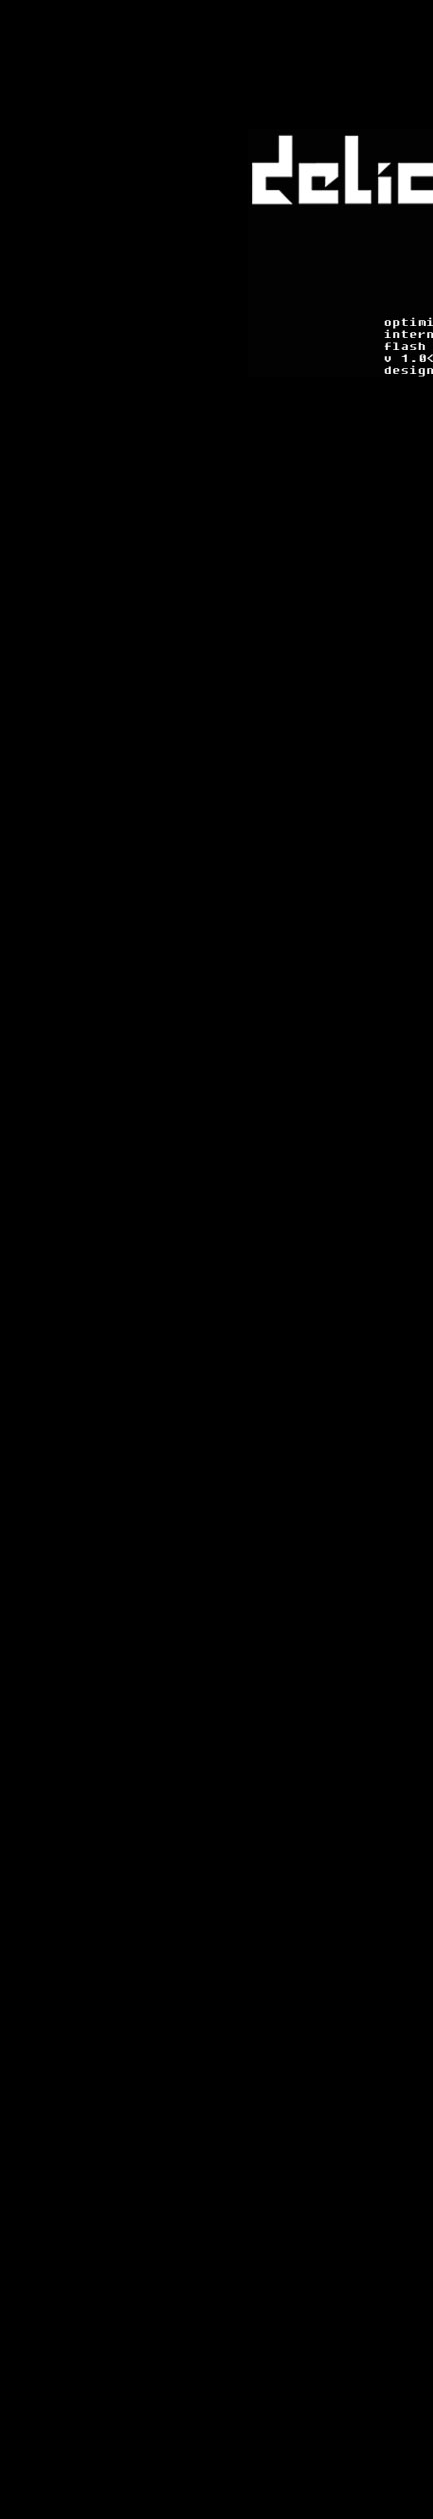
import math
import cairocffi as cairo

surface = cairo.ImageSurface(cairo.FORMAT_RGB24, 433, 2519)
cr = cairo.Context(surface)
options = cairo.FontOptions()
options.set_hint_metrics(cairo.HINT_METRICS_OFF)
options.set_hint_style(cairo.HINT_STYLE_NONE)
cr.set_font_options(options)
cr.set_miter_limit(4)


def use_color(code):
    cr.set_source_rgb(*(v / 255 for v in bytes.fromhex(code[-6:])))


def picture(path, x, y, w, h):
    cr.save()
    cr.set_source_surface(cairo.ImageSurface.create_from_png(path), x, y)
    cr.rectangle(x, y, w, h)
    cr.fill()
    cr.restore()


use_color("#000000")
cr.paint()
picture("img1.png", 248, 129, 185, 248)
surface.write_to_png("result.png")
